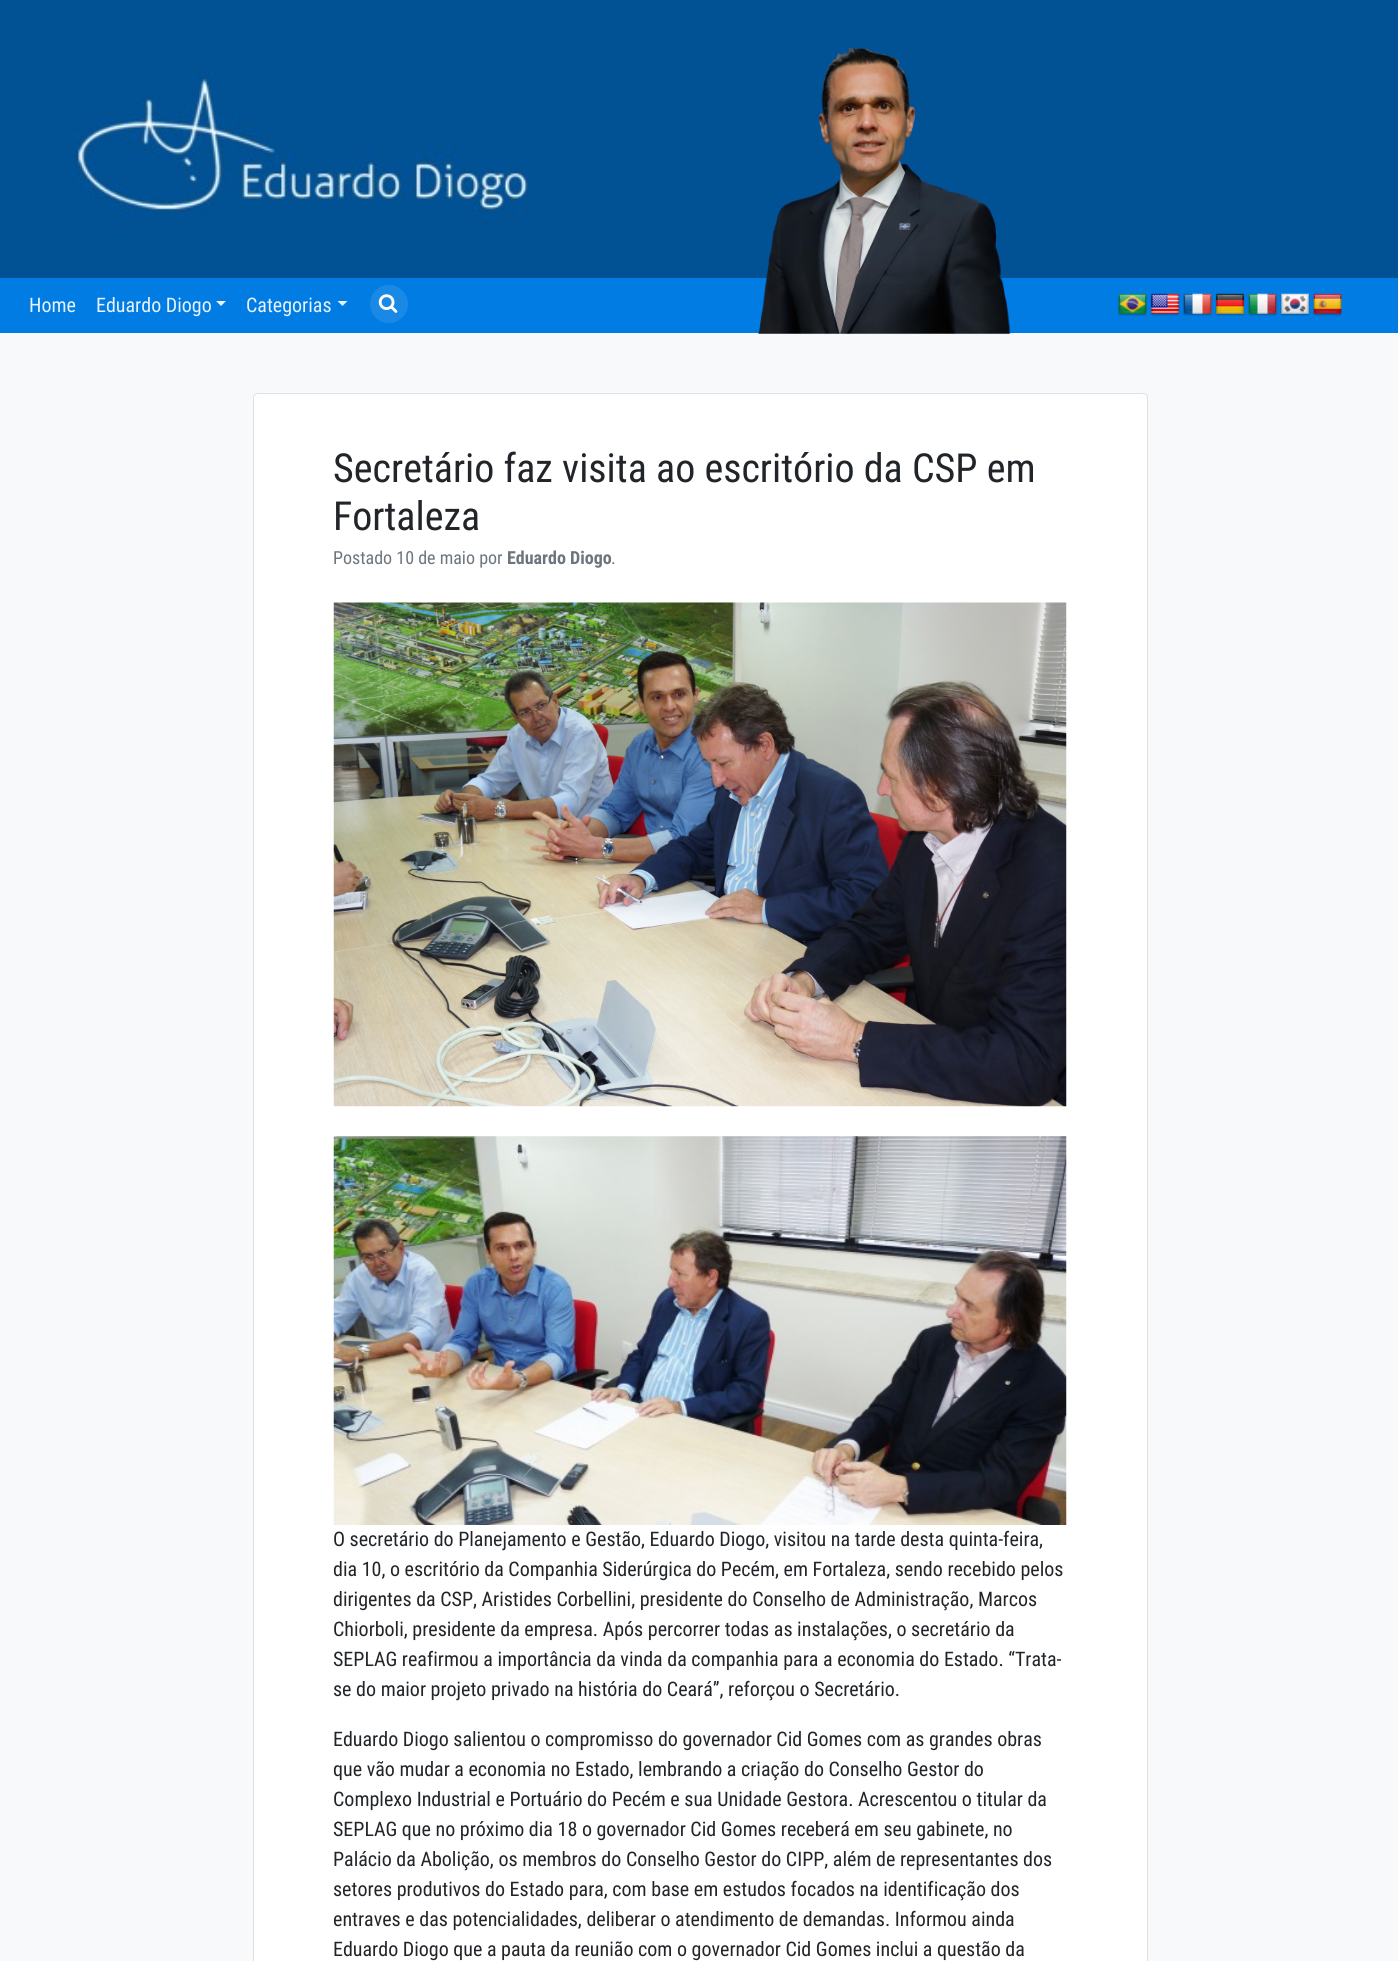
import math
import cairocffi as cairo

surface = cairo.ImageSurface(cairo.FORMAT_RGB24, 1398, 1961)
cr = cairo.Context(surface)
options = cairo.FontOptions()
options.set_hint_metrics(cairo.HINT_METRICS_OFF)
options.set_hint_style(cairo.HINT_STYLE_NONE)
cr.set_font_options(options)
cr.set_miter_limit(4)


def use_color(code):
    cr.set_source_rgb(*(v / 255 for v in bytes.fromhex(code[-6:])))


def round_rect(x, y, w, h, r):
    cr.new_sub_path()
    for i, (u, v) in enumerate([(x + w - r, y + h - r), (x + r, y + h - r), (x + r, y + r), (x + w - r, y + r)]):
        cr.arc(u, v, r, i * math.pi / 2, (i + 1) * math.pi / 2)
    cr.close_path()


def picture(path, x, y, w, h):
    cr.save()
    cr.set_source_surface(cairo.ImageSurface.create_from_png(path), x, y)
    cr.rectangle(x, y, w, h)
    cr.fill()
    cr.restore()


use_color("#f8f9fa")
cr.paint()
use_color("#015294")
cr.rectangle(0, 0, 1398, 278)
cr.fill()
picture("img1.png", 71, 57, 458, 170)
use_color("#017ce3")
cr.rectangle(0, 278, 1398, 55)
cr.fill()
cr.select_font_face("Roboto Condensed")
cr.set_font_size(20)
use_color("#e6f2fc")
cr.move_to(29, 312)
cr.show_text("Home")
cr.move_to(96, 312)
cr.show_text("Eduardo Diogo")
cr.new_path()
cr.move_to(216, 301)
cr.line_to(226, 301)
cr.line_to(221, 306)
cr.close_path()
cr.fill()
cr.move_to(246, 312)
cr.show_text("Categorias")
cr.new_path()
cr.move_to(337.5, 301)
cr.line_to(347.5, 301)
cr.line_to(342.5, 306)
cr.close_path()
cr.fill()
use_color("#1a89e6")
cr.arc(389, 304, 19, 0, 2 * math.pi)
cr.fill()
picture("img2.png", 378, 294, 20, 19)
picture("img3.png", 758, 47, 253, 287)
picture("img4.png", 1117, 293, 31, 23)
picture("img5.png", 1150, 293, 30, 23)
picture("img6.png", 1182, 293, 31, 23)
picture("img7.png", 1215, 293, 30, 23)
picture("img8.png", 1247, 293, 31, 23)
picture("img9.png", 1280, 293, 30, 23)
picture("img10.png", 1312, 293, 30, 23)
use_color("#ffffff")
round_rect(253, 393, 895, 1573, 5)
cr.fill()
round_rect(253.5, 393.5, 894, 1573, 4.5)
cr.set_source_rgba(0, 0, 0, 0.12)
cr.set_line_width(1)
cr.stroke()
cr.set_font_size(40)
use_color("#212529")
cr.move_to(333, 482)
cr.show_text("Secretário faz visita ao escritório da CSP em")
cr.move_to(333, 530)
cr.show_text("Fortaleza")
cr.set_font_size(18)
use_color("#6c757d")
cr.move_to(333, 564)
cr.show_text("Postado 10 de maio por")
cr.select_font_face("Roboto Condensed", cairo.FONT_SLANT_NORMAL, cairo.FONT_WEIGHT_BOLD)
cr.move_to(507, 564)
cr.show_text("Eduardo Diogo")
cr.select_font_face("Roboto Condensed")
cr.move_to(611, 564)
cr.show_text(".")
picture("img11.png", 333, 602, 734, 505)
picture("img12.png", 333, 1136, 734, 389)
cr.set_font_size(20)
use_color("#212529")
cr.move_to(333, 1546)
cr.show_text("O secretário do Planejamento e Gestão, Eduardo Diogo, visitou na tarde desta quinta-feira,")
cr.move_to(333, 1576)
cr.show_text("dia 10, o escritório da Companhia Siderúrgica do Pecém, em Fortaleza, sendo recebido pelos")
cr.move_to(333, 1606)
cr.show_text("dirigentes da CSP, Aristides Corbellini, presidente do Conselho de Administração, Marcos")
cr.move_to(333, 1636)
cr.show_text("Chiorboli, presidente da empresa. Após percorrer todas as instalações, o secretário da")
cr.move_to(333, 1666)
cr.show_text("SEPLAG reafirmou a importância da vinda da companhia para a economia do Estado. “Trata-")
cr.move_to(333, 1696)
cr.show_text("se do maior projeto privado na história do Ceará”, reforçou o Secretário.")
cr.move_to(333, 1746)
cr.show_text("Eduardo Diogo salientou o compromisso do governador Cid Gomes com as grandes obras")
cr.move_to(333, 1776)
cr.show_text("que vão mudar a economia no Estado, lembrando a criação do Conselho Gestor do")
cr.move_to(333, 1806)
cr.show_text("Complexo Industrial e Portuário do Pecém e sua Unidade Gestora. Acrescentou o titular da")
cr.move_to(333, 1836)
cr.show_text("SEPLAG que no próximo dia 18 o governador Cid Gomes receberá em seu gabinete, no")
cr.move_to(333, 1866)
cr.show_text("Palácio da Abolição, os membros do Conselho Gestor do CIPP, além de representantes dos")
cr.move_to(333, 1896)
cr.show_text("setores produtivos do Estado para, com base em estudos focados na identificação dos")
cr.move_to(333, 1926)
cr.show_text("entraves e das potencialidades, deliberar o atendimento de demandas. Informou ainda")
cr.move_to(333, 1956)
cr.show_text("Eduardo Diogo que a pauta da reunião com o governador Cid Gomes inclui a questão da")
surface.write_to_png("result.png")
